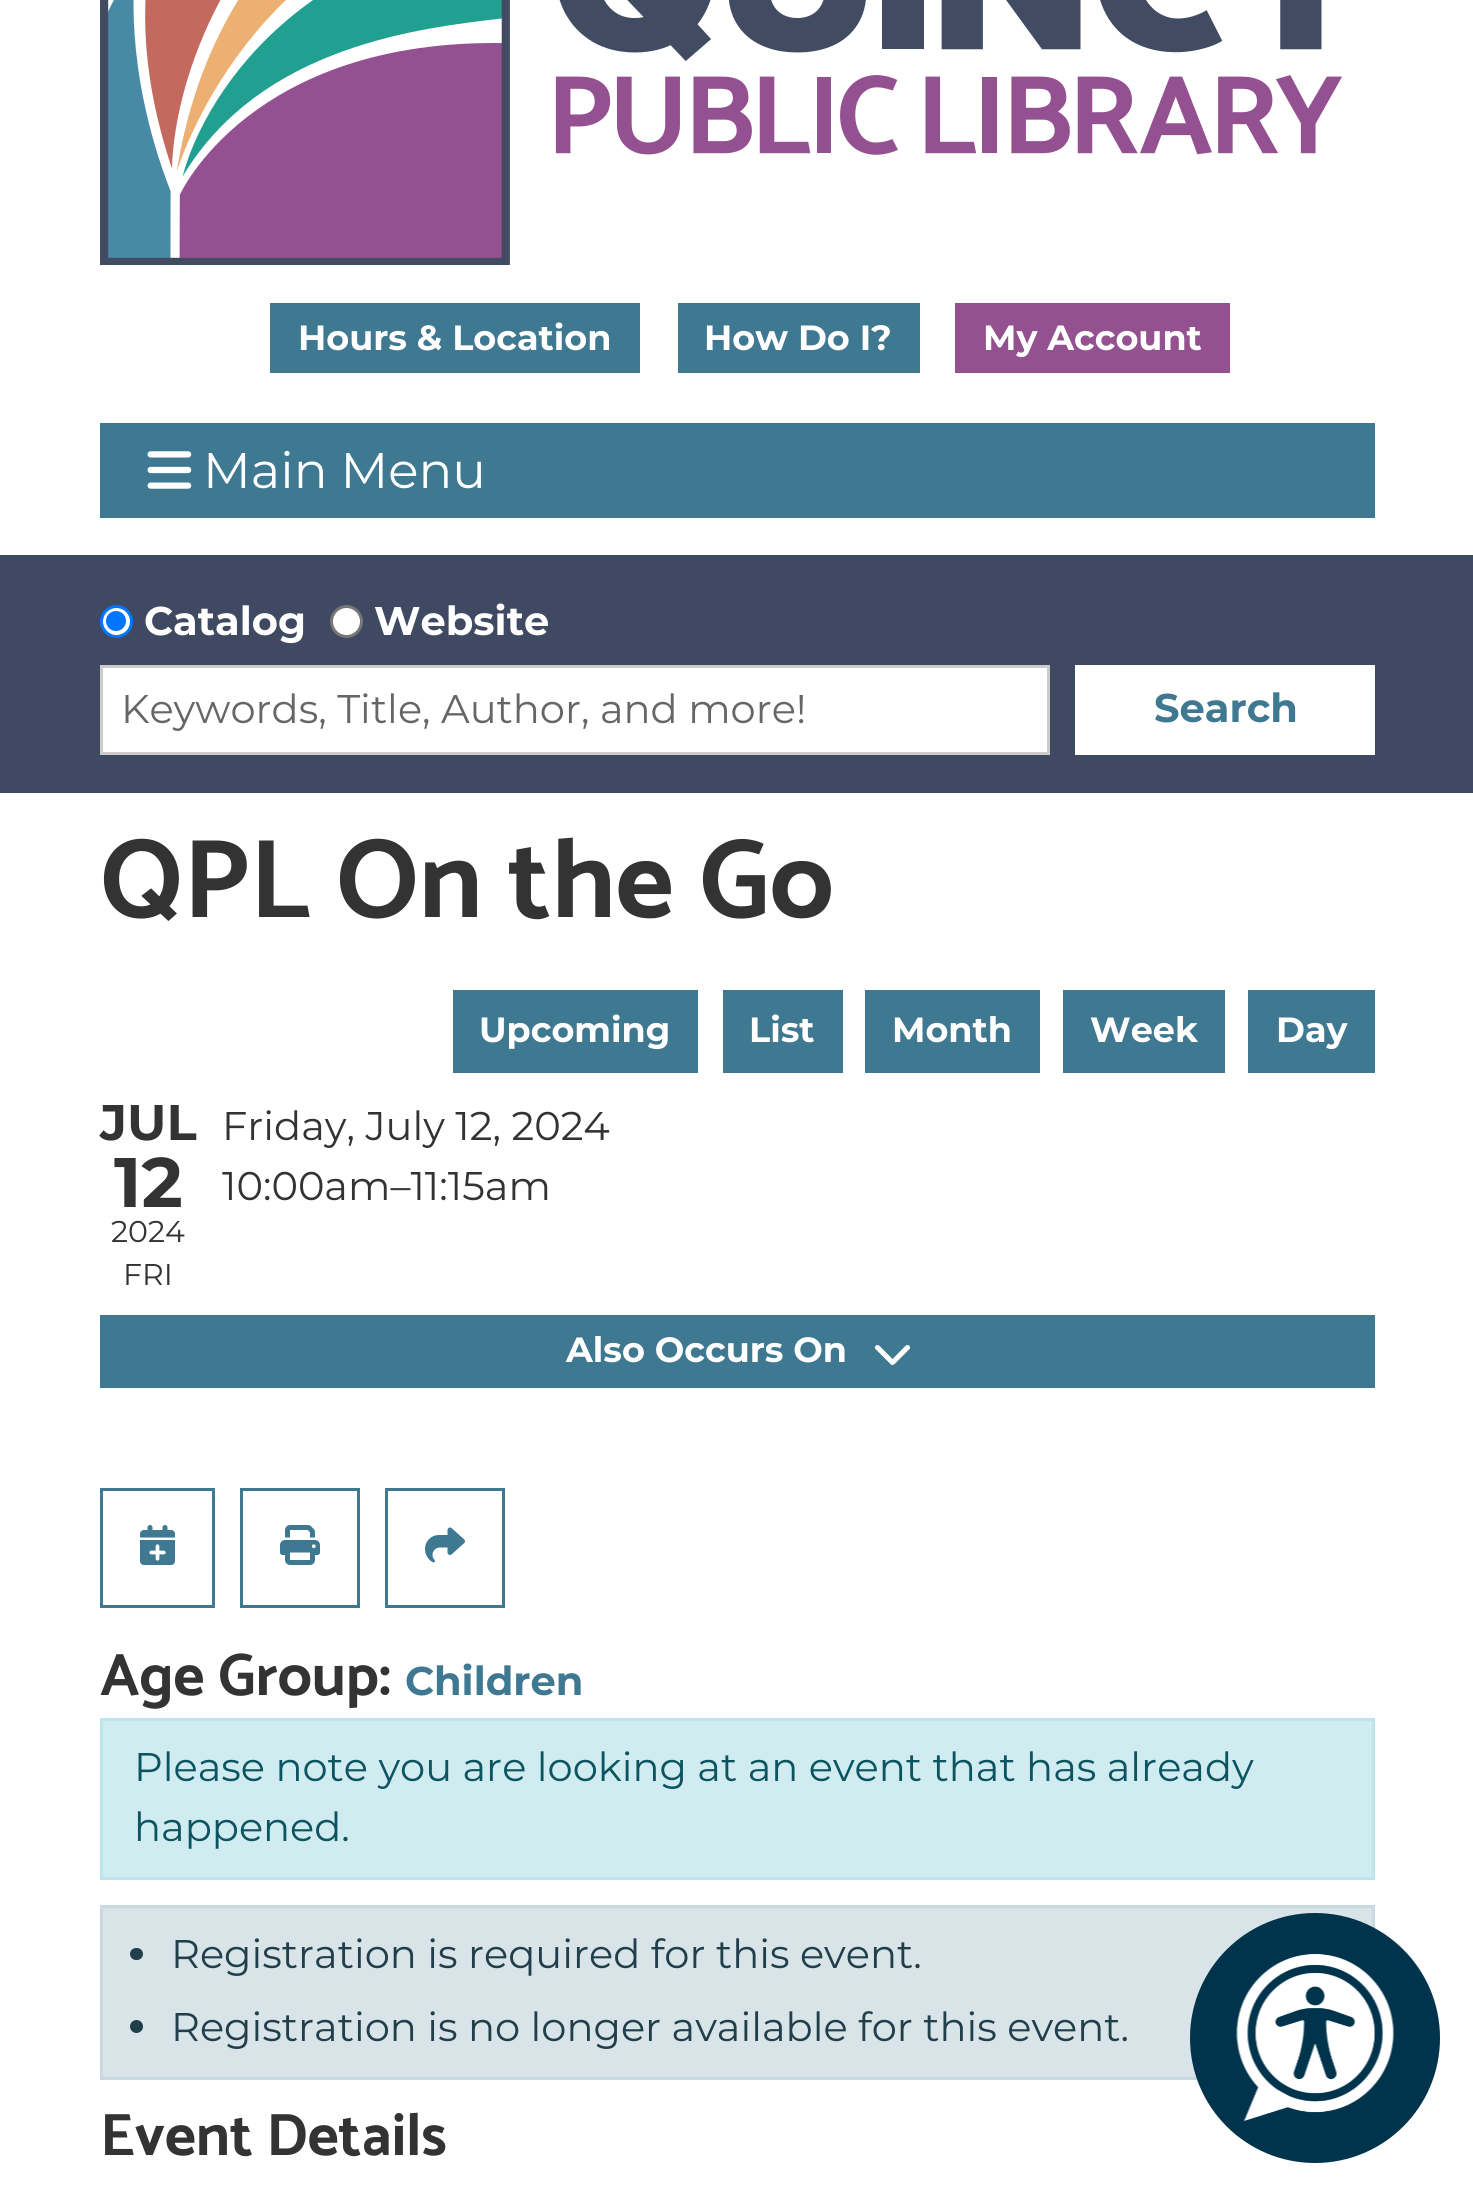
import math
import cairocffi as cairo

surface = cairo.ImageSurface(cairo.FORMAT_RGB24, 1473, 2196)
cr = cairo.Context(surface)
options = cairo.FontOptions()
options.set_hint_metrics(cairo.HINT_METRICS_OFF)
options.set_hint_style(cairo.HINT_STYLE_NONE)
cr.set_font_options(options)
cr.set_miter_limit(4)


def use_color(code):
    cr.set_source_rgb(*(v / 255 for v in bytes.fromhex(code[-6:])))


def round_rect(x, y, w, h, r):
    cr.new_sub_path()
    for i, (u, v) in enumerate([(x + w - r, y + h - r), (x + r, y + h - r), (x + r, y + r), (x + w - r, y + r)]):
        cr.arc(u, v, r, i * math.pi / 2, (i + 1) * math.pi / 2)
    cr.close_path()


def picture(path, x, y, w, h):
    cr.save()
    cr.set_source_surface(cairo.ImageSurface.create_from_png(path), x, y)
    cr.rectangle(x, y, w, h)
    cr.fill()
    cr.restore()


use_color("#ffffff")
cr.paint()
picture("img1.png", 100, 0, 1242, 265)
use_color("#3f7891")
cr.rectangle(270, 303, 370, 70)
cr.fill()
cr.select_font_face("Montserrat", cairo.FONT_SLANT_NORMAL, cairo.FONT_WEIGHT_BOLD)
cr.set_font_size(35)
use_color("#ffffff")
cr.move_to(298, 350)
cr.show_text("Hours & Location")
use_color("#3f7891")
cr.rectangle(678, 303, 242, 70)
cr.fill()
use_color("#ffffff")
cr.move_to(704, 350)
cr.show_text("How Do I?")
use_color("#935190")
cr.rectangle(955, 303, 275, 70)
cr.fill()
use_color("#ffffff")
cr.move_to(983, 350)
cr.show_text("My Account")
use_color("#3f7891")
cr.rectangle(100, 423, 1275, 95)
cr.fill()
picture("img2.png", 147, 451, 45, 38)
cr.select_font_face("Montserrat")
cr.set_font_size(50)
use_color("#ffffff")
cr.move_to(203, 488)
cr.show_text("Main Menu")
use_color("#3f4a62")
cr.rectangle(0, 555, 1473, 238)
cr.fill()
use_color("#ffffff")
cr.arc(116.5, 621.5, 15, 0, 2 * math.pi)
cr.fill_preserve()
use_color("#0075ff")
cr.set_line_width(3)
cr.stroke()
cr.arc(116, 621, 10, 0, 2 * math.pi)
cr.fill()
cr.select_font_face("Montserrat", cairo.FONT_SLANT_NORMAL, cairo.FONT_WEIGHT_BOLD)
cr.set_font_size(40)
use_color("#ffffff")
cr.move_to(144, 635)
cr.show_text("Catalog")
cr.new_path()
cr.arc(346.5, 621.5, 15, 0, 2 * math.pi)
cr.fill_preserve()
use_color("#767676")
cr.stroke()
use_color("#ffffff")
cr.move_to(374, 635)
cr.show_text("Website")
cr.rectangle(101.5, 666.5, 947, 87)
cr.fill_preserve()
use_color("#cccccc")
cr.stroke()
cr.select_font_face("Montserrat")
use_color("#666666")
cr.move_to(121, 723)
cr.show_text("Keywords, Title, Author, and more!")
use_color("#ffffff")
cr.rectangle(1075, 665, 300, 90)
cr.fill()
cr.select_font_face("Montserrat", cairo.FONT_SLANT_NORMAL, cairo.FONT_WEIGHT_BOLD)
use_color("#3f7891")
cr.move_to(1154, 722)
cr.show_text("Search")
cr.select_font_face("Catamaran Thin")
cr.set_font_size(112.5)
use_color("#333333")
cr.move_to(100, 917)
cr.show_text("QPL On the Go")
use_color("#3f7891")
cr.rectangle(453, 990, 245, 83)
cr.fill()
cr.select_font_face("Montserrat", cairo.FONT_SLANT_NORMAL, cairo.FONT_WEIGHT_BOLD)
cr.set_font_size(35)
use_color("#ffffff")
cr.move_to(479, 1042)
cr.show_text("Upcoming")
use_color("#3f7891")
cr.rectangle(723, 990, 120, 83)
cr.fill()
use_color("#ffffff")
cr.move_to(749, 1042)
cr.show_text("List")
use_color("#3f7891")
cr.rectangle(865, 990, 175, 83)
cr.fill()
use_color("#ffffff")
cr.move_to(892, 1042)
cr.show_text("Month")
use_color("#3f7891")
cr.rectangle(1063, 990, 162, 83)
cr.fill()
use_color("#ffffff")
cr.move_to(1090, 1042)
cr.show_text("Week")
use_color("#3f7891")
cr.rectangle(1248, 990, 127, 83)
cr.fill()
use_color("#ffffff")
cr.move_to(1276, 1042)
cr.show_text("Day")
cr.set_font_size(50)
use_color("#333333")
cr.move_to(100, 1140)
cr.show_text("JUL")
cr.set_font_size(70)
cr.move_to(114, 1207)
cr.show_text("12")
cr.select_font_face("Montserrat")
cr.set_font_size(30)
cr.move_to(111, 1242)
cr.show_text("2024")
cr.move_to(123, 1285)
cr.show_text("FRI")
cr.set_font_size(40)
cr.move_to(222, 1140)
cr.show_text("Friday, July 12, 2024")
cr.move_to(222, 1200)
cr.show_text("10:00am–11:15am")
use_color("#3f7891")
cr.rectangle(100, 1315, 1275, 73)
cr.fill()
cr.select_font_face("Montserrat", cairo.FONT_SLANT_NORMAL, cairo.FONT_WEIGHT_BOLD)
cr.set_font_size(35)
use_color("#ffffff")
cr.move_to(566, 1362)
cr.show_text("Also Occurs On")
picture("img3.png", 875, 1345, 35, 20)
cr.rectangle(101.5, 1489.5, 112, 117)
use_color("#3f7891")
cr.stroke()
picture("img4.png", 140, 1525, 35, 40)
cr.rectangle(241.5, 1489.5, 117, 117)
cr.stroke()
picture("img5.png", 280, 1525, 40, 40)
cr.rectangle(386.5, 1489.5, 117, 117)
cr.stroke()
picture("img6.png", 425, 1527, 40, 36)
cr.select_font_face("Catamaran Thin")
cr.set_font_size(60)
use_color("#333333")
cr.move_to(100, 1695)
cr.show_text("Age Group:")
cr.select_font_face("Montserrat", cairo.FONT_SLANT_NORMAL, cairo.FONT_WEIGHT_BOLD)
cr.set_font_size(40)
use_color("#3f7891")
cr.move_to(405, 1695)
cr.show_text("Children")
use_color("#d1ecf1")
cr.rectangle(101.5, 1719.5, 1272, 159)
cr.fill_preserve()
use_color("#bee5eb")
cr.stroke()
cr.select_font_face("Montserrat")
use_color("#0c5460")
cr.move_to(134, 1781)
cr.show_text("Please note you are looking at an event that has already")
cr.move_to(134, 1841)
cr.show_text("happened.")
use_color("#d9e4e9")
cr.rectangle(101.5, 1906.5, 1272, 172)
cr.fill_preserve()
use_color("#c9d9e0")
cr.stroke()
use_color("#213e4b")
round_rect(130, 1948, 13, 12, 6)
cr.fill()
cr.move_to(171, 1968)
cr.show_text("Registration is required for this event.")
cr.new_path()
cr.arc(136.5, 2026.5, 6.5, 0, 2 * math.pi)
cr.fill()
cr.move_to(171, 2041)
cr.show_text("Registration is no longer available for this event.")
cr.select_font_face("Catamaran Thin")
cr.set_font_size(60)
use_color("#333333")
cr.move_to(100, 2155)
cr.show_text("Event Details")
use_color("#00344c")
cr.new_path()
cr.arc(1315, 2038, 125, 0, 2 * math.pi)
cr.fill()
picture("img7.png", 1236, 1953, 158, 168)
surface.write_to_png("result.png")
